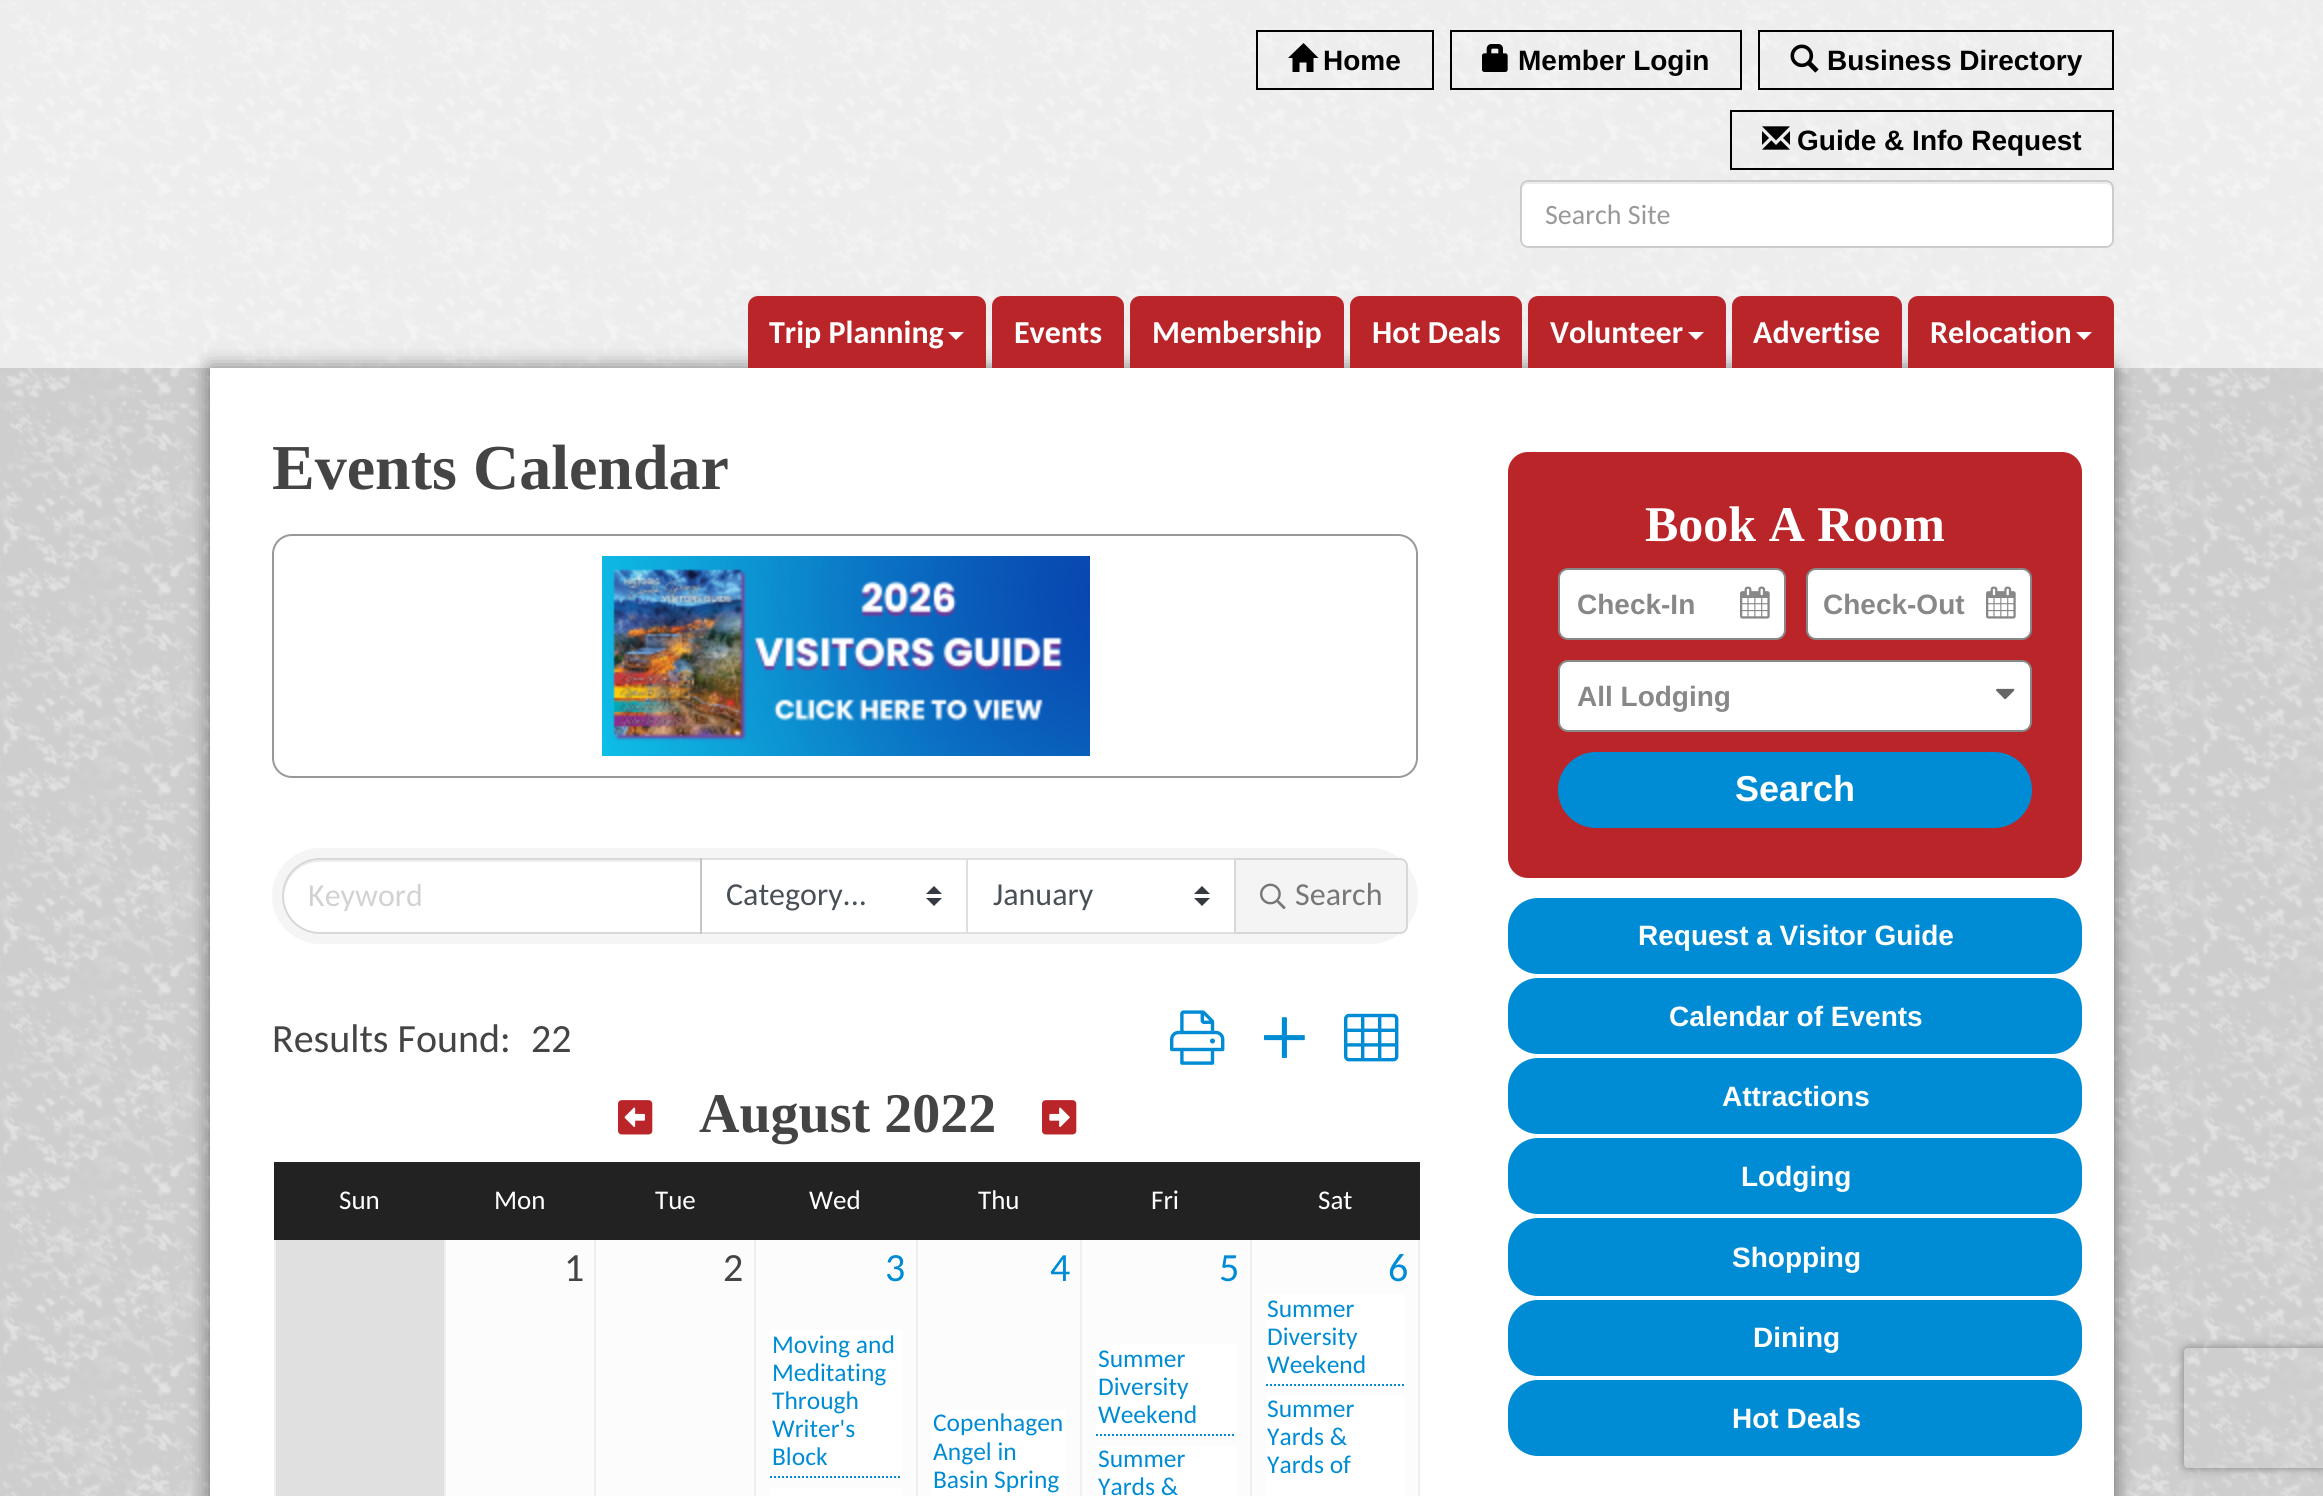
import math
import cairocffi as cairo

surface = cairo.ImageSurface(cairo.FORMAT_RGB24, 2323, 1496)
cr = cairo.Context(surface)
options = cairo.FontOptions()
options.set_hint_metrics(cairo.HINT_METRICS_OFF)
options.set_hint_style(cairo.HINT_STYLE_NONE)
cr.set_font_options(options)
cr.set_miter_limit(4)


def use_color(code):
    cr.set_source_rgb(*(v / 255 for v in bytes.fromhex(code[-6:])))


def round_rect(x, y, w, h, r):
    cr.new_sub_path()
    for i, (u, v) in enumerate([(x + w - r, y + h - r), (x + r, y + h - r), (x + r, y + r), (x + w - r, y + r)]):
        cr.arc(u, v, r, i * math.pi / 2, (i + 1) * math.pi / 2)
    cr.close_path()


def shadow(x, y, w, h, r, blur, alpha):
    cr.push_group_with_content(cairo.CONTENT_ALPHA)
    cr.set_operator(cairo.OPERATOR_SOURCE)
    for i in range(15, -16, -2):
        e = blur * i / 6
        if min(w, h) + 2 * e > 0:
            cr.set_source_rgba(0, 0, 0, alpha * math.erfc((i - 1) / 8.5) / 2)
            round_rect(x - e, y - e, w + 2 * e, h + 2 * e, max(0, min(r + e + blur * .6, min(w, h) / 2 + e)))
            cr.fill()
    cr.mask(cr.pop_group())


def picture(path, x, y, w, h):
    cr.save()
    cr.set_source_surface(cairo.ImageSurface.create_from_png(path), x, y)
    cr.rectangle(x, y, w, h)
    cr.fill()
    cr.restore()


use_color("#cecece")
cr.paint()
picture("img1.png", 0, 0, 2323, 1496)
cr.set_source_rgba(1, 1, 1, 0.63)
cr.rectangle(0, 0, 2323, 368)
cr.fill()
cr.rectangle(1257, 31, 176, 58)
use_color("#000000")
cr.stroke()
cr.new_path()
cr.move_to(1288, 58)
cr.line_to(1303.5, 43)
cr.line_to(1318.5, 58)
cr.line_to(1313.5, 58)
cr.line_to(1313.5, 72)
cr.line_to(1306.5, 72)
cr.line_to(1306.5, 62.5)
cr.line_to(1299.5, 62.5)
cr.line_to(1299.5, 72)
cr.line_to(1292.5, 72)
cr.line_to(1292.5, 58)
cr.close_path()
cr.fill()
cr.select_font_face("Liberation Sans", cairo.FONT_SLANT_NORMAL, cairo.FONT_WEIGHT_BOLD)
cr.set_font_size(28)
cr.move_to(1323, 70)
cr.show_text("Home")
cr.rectangle(1451, 31, 290, 58)
cr.stroke()
picture("img2.png", 1482, 44, 26, 28)
cr.move_to(1518, 70)
cr.show_text("Member Login")
cr.rectangle(1759, 31, 354, 58)
cr.stroke()
picture("img3.png", 1790, 44, 29, 29)
cr.move_to(1827, 70)
cr.show_text("Business Directory")
cr.rectangle(1731, 111, 382, 58)
cr.stroke()
picture("img4.png", 1762, 126, 28, 24)
cr.move_to(1797, 150)
cr.show_text("Guide & Info Request")
use_color("#ffffff")
round_rect(1520, 180, 594, 68, 8)
cr.fill()
use_color("#ececec")
cr.new_path()
cr.move_to(1528, 184)
cr.line_to(2106, 184)
cr.curve_to(2109, 184, 2112, 187, 2112, 190)
cr.line_to(2112, 188)
cr.curve_to(2112, 185, 2109, 182, 2106, 182)
cr.line_to(1528, 182)
cr.curve_to(1525, 182, 1522, 185, 1522, 188)
cr.line_to(1522, 190)
cr.curve_to(1522, 187, 1525, 184, 1528, 184)
cr.close_path()
cr.fill()
round_rect(1521, 181, 592, 66, 7)
use_color("#cccccc")
cr.stroke()
cr.select_font_face("Carlito")
use_color("#999999")
cr.move_to(1545, 224)
cr.show_text("Search Site")
use_color("#000000")
shadow(210, 368, 1904, 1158, 0, 10, 0.5)
use_color("#ba2529")
cr.new_path()
cr.move_to(758, 296)
cr.line_to(976, 296)
cr.curve_to(981.5, 296, 986, 300.5, 986, 306)
cr.line_to(986, 368)
cr.line_to(748, 368)
cr.line_to(748, 306)
cr.curve_to(748, 300.5, 752.5, 296, 758, 296)
cr.close_path()
cr.fill()
cr.select_font_face("Carlito", cairo.FONT_SLANT_NORMAL, cairo.FONT_WEIGHT_BOLD)
cr.set_font_size(32)
use_color("#ffffff")
cr.move_to(769, 343)
cr.show_text("Trip Planning")
cr.new_path()
cr.move_to(948, 332)
cr.line_to(964, 332)
cr.line_to(956, 340)
cr.close_path()
cr.fill()
use_color("#ba2529")
cr.new_path()
cr.move_to(1002, 296)
cr.line_to(1114, 296)
cr.curve_to(1119.5, 296, 1124, 300.5, 1124, 306)
cr.line_to(1124, 368)
cr.line_to(992, 368)
cr.line_to(992, 306)
cr.curve_to(992, 300.5, 996.5, 296, 1002, 296)
cr.close_path()
cr.fill()
use_color("#ffffff")
cr.move_to(1014, 343)
cr.show_text("Events")
use_color("#ba2529")
cr.new_path()
cr.move_to(1140, 296)
cr.line_to(1334, 296)
cr.curve_to(1339.5, 296, 1344, 300.5, 1344, 306)
cr.line_to(1344, 368)
cr.line_to(1130, 368)
cr.line_to(1130, 306)
cr.curve_to(1130, 300.5, 1134.5, 296, 1140, 296)
cr.close_path()
cr.fill()
use_color("#ffffff")
cr.move_to(1152, 343)
cr.show_text("Membership")
use_color("#ba2529")
cr.new_path()
cr.move_to(1360, 296)
cr.line_to(1512, 296)
cr.curve_to(1517.5, 296, 1522, 300.5, 1522, 306)
cr.line_to(1522, 368)
cr.line_to(1350, 368)
cr.line_to(1350, 306)
cr.curve_to(1350, 300.5, 1354.5, 296, 1360, 296)
cr.close_path()
cr.fill()
use_color("#ffffff")
cr.move_to(1372, 343)
cr.show_text("Hot Deals")
use_color("#ba2529")
cr.new_path()
cr.move_to(1538, 296)
cr.line_to(1716, 296)
cr.curve_to(1721.5, 296, 1726, 300.5, 1726, 306)
cr.line_to(1726, 368)
cr.line_to(1528, 368)
cr.line_to(1528, 306)
cr.curve_to(1528, 300.5, 1532.5, 296, 1538, 296)
cr.close_path()
cr.fill()
use_color("#ffffff")
cr.move_to(1550, 343)
cr.show_text("Volunteer")
cr.new_path()
cr.move_to(1688, 332)
cr.line_to(1704, 332)
cr.line_to(1696, 340)
cr.close_path()
cr.fill()
use_color("#ba2529")
cr.new_path()
cr.move_to(1742, 296)
cr.line_to(1892, 296)
cr.curve_to(1897.5, 296, 1902, 300.5, 1902, 306)
cr.line_to(1902, 368)
cr.line_to(1732, 368)
cr.line_to(1732, 306)
cr.curve_to(1732, 300.5, 1736.5, 296, 1742, 296)
cr.close_path()
cr.fill()
use_color("#ffffff")
cr.move_to(1753, 343)
cr.show_text("Advertise")
use_color("#ba2529")
cr.new_path()
cr.move_to(1918, 296)
cr.line_to(2104, 296)
cr.curve_to(2109.5, 296, 2114, 300.5, 2114, 306)
cr.line_to(2114, 368)
cr.line_to(1908, 368)
cr.line_to(1908, 306)
cr.curve_to(1908, 300.5, 1912.5, 296, 1918, 296)
cr.close_path()
cr.fill()
use_color("#ffffff")
cr.move_to(1930, 343)
cr.show_text("Relocation")
cr.new_path()
cr.move_to(2076, 332)
cr.line_to(2092, 332)
cr.line_to(2084, 340)
cr.close_path()
cr.fill()
cr.rectangle(210, 368, 1904, 1128)
cr.fill()
cr.select_font_face("Liberation Serif", cairo.FONT_SLANT_NORMAL, cairo.FONT_WEIGHT_BOLD)
cr.set_font_size(64)
use_color("#444444")
cr.move_to(272, 489)
cr.show_text("Events Calendar")
round_rect(273, 535, 1144, 242, 19)
use_color("#999999")
cr.stroke()
picture("img5.png", 602, 556, 488, 200)
use_color("#f5f5f5")
round_rect(272, 848, 1146, 96, 48)
cr.fill()
use_color("#ffffff")
cr.new_path()
cr.move_to(320, 860)
cr.line_to(700, 860)
cr.line_to(700, 932)
cr.line_to(320, 932)
cr.curve_to(300, 932, 284, 916, 284, 896)
cr.curve_to(284, 876, 300, 860, 320, 860)
cr.close_path()
cr.fill()
cr.set_source_rgba(0, 0, 0, 0.07)
cr.new_path()
cr.move_to(320, 862)
cr.line_to(700, 862)
cr.line_to(700, 860)
cr.line_to(320, 860)
cr.curve_to(300, 860, 284, 876, 284, 896)
cr.line_to(284, 897)
cr.curve_to(285, 877, 300, 862, 320, 862)
cr.close_path()
cr.fill()
use_color("#ffffff")
cr.rectangle(702, 860, 264, 72)
cr.fill()
use_color("#343a40")
cr.new_path()
cr.move_to(934, 886)
cr.line_to(926, 894)
cr.line_to(942, 894)
cr.close_path()
cr.move_to(934, 906)
cr.line_to(926, 898)
cr.line_to(942, 898)
cr.close_path()
cr.fill()
cr.rectangle(701, 859, 266, 74)
use_color("#dfdfdf")
cr.stroke()
cr.new_path()
cr.move_to(320, 859)
cr.line_to(701, 859)
cr.line_to(701, 933)
cr.line_to(320, 933)
cr.curve_to(299.5, 933, 283, 916.5, 283, 896)
cr.curve_to(283, 875.5, 299.5, 859, 320, 859)
cr.close_path()
cr.set_source_rgba(0, 0, 0, 0.12)
cr.stroke()
cr.select_font_face("Carlito")
cr.set_font_size(32)
use_color("#d2d2d2")
cr.move_to(308, 906)
cr.show_text("Keyword")
use_color("#495057")
cr.move_to(726, 905)
cr.show_text("Category...")
use_color("#ffffff")
cr.rectangle(968, 860, 266, 72)
cr.fill()
use_color("#343a40")
cr.new_path()
cr.move_to(1202, 886)
cr.line_to(1194, 894)
cr.line_to(1210, 894)
cr.close_path()
cr.move_to(1202, 906)
cr.line_to(1194, 898)
cr.line_to(1210, 898)
cr.close_path()
cr.fill()
cr.rectangle(967, 859, 268, 74)
use_color("#dfdfdf")
cr.stroke()
use_color("#495057")
cr.move_to(993, 905)
cr.show_text("January")
use_color("#f4f4f4")
cr.new_path()
cr.move_to(1234, 858)
cr.line_to(1400, 858)
cr.curve_to(1404.5, 858, 1408, 861.5, 1408, 866)
cr.line_to(1408, 926)
cr.curve_to(1408, 930.5, 1404.5, 934, 1400, 934)
cr.line_to(1234, 934)
cr.close_path()
cr.fill()
cr.new_path()
cr.move_to(1235, 859)
cr.line_to(1400, 859)
cr.curve_to(1404, 859, 1407, 862, 1407, 866)
cr.line_to(1407, 926)
cr.curve_to(1407, 930, 1404, 933, 1400, 933)
cr.line_to(1235, 933)
cr.close_path()
cr.set_source_rgba(0, 0, 0, 0.12)
cr.stroke()
picture("img6.png", 1260, 883, 26, 27)
use_color("#777777")
cr.move_to(1295, 905)
cr.show_text("Search")
cr.set_font_size(40)
use_color("#444444")
cr.move_to(272, 1052)
cr.show_text("Results Found:")
cr.move_to(531, 1052)
cr.show_text("22")
picture("img7.png", 1170, 1010, 55, 55)
picture("img8.png", 1264, 1017, 41, 41)
picture("img9.png", 1344, 1013, 55, 49)
picture("img10.png", 618, 1100, 35, 35)
cr.select_font_face("Liberation Serif", cairo.FONT_SLANT_NORMAL, cairo.FONT_WEIGHT_BOLD)
cr.set_font_size(56)
cr.move_to(699, 1132)
cr.show_text("August 2022")
picture("img11.png", 1042, 1100, 35, 35)
use_color("#222222")
cr.rectangle(276, 1164, 168, 74)
cr.fill()
cr.rectangle(444, 1162, 974, 76)
cr.fill()
cr.rectangle(274, 1162, 172, 2)
cr.fill()
use_color("#efefef")
cr.rectangle(1418, 1238, 2, 258)
cr.fill()
use_color("#222222")
cr.rectangle(1418, 1162, 2, 78)
cr.fill()
use_color("#efefef")
cr.rectangle(274, 1238, 2, 258)
cr.fill()
cr.rectangle(444, 1238, 2, 258)
cr.fill()
use_color("#fcfcfc")
cr.rectangle(446, 1240, 972, 256)
cr.fill()
use_color("#efefef")
cr.rectangle(594, 1238, 2, 258)
cr.fill()
cr.rectangle(754, 1238, 2, 258)
cr.fill()
cr.rectangle(916, 1238, 2, 258)
cr.fill()
cr.rectangle(1080, 1238, 2, 258)
cr.fill()
cr.rectangle(1250, 1238, 2, 258)
cr.fill()
use_color("#222222")
cr.rectangle(274, 1238, 1146, 2)
cr.fill()
cr.rectangle(274, 1162, 2, 78)
cr.fill()
cr.select_font_face("Carlito")
cr.set_font_size(27)
use_color("#ffffff")
cr.move_to(339, 1209)
cr.show_text("Sun")
cr.move_to(494, 1209)
cr.show_text("Mon")
cr.move_to(655, 1209)
cr.show_text("Tue")
cr.move_to(809, 1209)
cr.show_text("Wed")
cr.move_to(978, 1209)
cr.show_text("Thu")
cr.move_to(1151, 1209)
cr.show_text("Fri")
cr.move_to(1318, 1209)
cr.show_text("Sat")
use_color("#e0e0e0")
cr.rectangle(276, 1240, 168, 256)
cr.fill()
cr.set_font_size(40)
use_color("#444444")
cr.move_to(564, 1281)
cr.show_text("1")
cr.move_to(723, 1281)
cr.show_text("2")
use_color("#008cd4")
cr.move_to(885, 1281)
cr.show_text("3")
use_color("#ffffff")
cr.rectangle(770, 1330, 132, 148)
cr.fill()
cr.new_path()
cr.move_to(770, 1477)
cr.line_to(902, 1477)
use_color("#008cd4")
cr.set_dash([2, 2])
cr.stroke()
cr.set_font_size(25.5)
cr.move_to(772, 1353)
cr.show_text("Moving and")
cr.move_to(772, 1381)
cr.show_text("Meditating")
cr.move_to(772, 1409)
cr.show_text("Through")
cr.move_to(772, 1437)
cr.show_text("Writer's")
cr.move_to(772, 1465)
cr.show_text("Block")
use_color("#ffffff")
cr.rectangle(770, 1488, 132, 8)
cr.fill()
cr.set_font_size(40)
use_color("#008cd4")
cr.move_to(1050, 1281)
cr.show_text("4")
use_color("#ffffff")
cr.rectangle(932, 1410, 134, 86)
cr.fill()
cr.set_font_size(25.5)
use_color("#008cd4")
cr.move_to(933, 1431)
cr.show_text("Copenhagen")
cr.move_to(933, 1460)
cr.show_text("Angel in")
cr.move_to(933, 1488)
cr.show_text("Basin Spring")
cr.set_font_size(40)
cr.move_to(1219, 1281)
cr.show_text("5")
use_color("#ffffff")
cr.rectangle(1096, 1344, 140, 92)
cr.fill()
cr.new_path()
cr.move_to(1096, 1435)
cr.line_to(1236, 1435)
use_color("#008cd4")
cr.stroke()
cr.set_font_size(25.5)
cr.move_to(1098, 1367)
cr.show_text("Summer")
cr.move_to(1098, 1395)
cr.show_text("Diversity")
cr.move_to(1098, 1423)
cr.show_text("Weekend")
use_color("#ffffff")
cr.rectangle(1096, 1446, 140, 50)
cr.fill()
use_color("#008cd4")
cr.move_to(1098, 1467)
cr.show_text("Summer")
cr.move_to(1098, 1495)
cr.show_text("Yards &")
cr.set_font_size(40)
cr.move_to(1388, 1281)
cr.show_text("6")
use_color("#ffffff")
cr.rectangle(1266, 1294, 138, 92)
cr.fill()
cr.new_path()
cr.move_to(1266, 1385)
cr.line_to(1404, 1385)
use_color("#008cd4")
cr.stroke()
cr.set_font_size(25.5)
cr.move_to(1267, 1317)
cr.show_text("Summer")
cr.move_to(1267, 1345)
cr.show_text("Diversity")
cr.move_to(1267, 1373)
cr.show_text("Weekend")
use_color("#ffffff")
cr.rectangle(1266, 1396, 138, 100)
cr.fill()
use_color("#008cd4")
cr.move_to(1267, 1417)
cr.show_text("Summer")
cr.move_to(1267, 1445)
cr.show_text("Yards &")
cr.move_to(1267, 1473)
cr.show_text("Yards of")
use_color("#ba2529")
round_rect(1508, 452, 574, 426, 20)
cr.fill()
cr.select_font_face("Liberation Serif", cairo.FONT_SLANT_NORMAL, cairo.FONT_WEIGHT_BOLD)
cr.set_font_size(50)
use_color("#ffffff")
cr.move_to(1645, 541)
cr.show_text("Book A Room")
round_rect(1559, 569, 226, 70, 9)
cr.fill_preserve()
use_color("#888888")
cr.set_dash([])
cr.stroke()
cr.select_font_face("Liberation Sans", cairo.FONT_SLANT_NORMAL, cairo.FONT_WEIGHT_BOLD)
cr.set_font_size(28)
cr.move_to(1577, 614)
cr.show_text("Check-In")
picture("img12.png", 1740, 586, 30, 33)
use_color("#ffffff")
round_rect(1807, 569, 224, 70, 9)
cr.fill_preserve()
use_color("#888888")
cr.stroke()
cr.move_to(1823, 614)
cr.show_text("Check-Out")
picture("img12.png", 1986, 586, 30, 33)
use_color("#ffffff")
round_rect(1559, 661, 472, 70, 9)
cr.fill_preserve()
use_color("#888888")
cr.stroke()
cr.move_to(1577, 706)
cr.show_text("All Lodging")
picture("img13.png", 1996, 688, 19, 12)
use_color("#008cd4")
round_rect(1558, 752, 474, 76, 38)
cr.fill()
cr.set_font_size(36)
use_color("#ffffff")
cr.move_to(1735, 801)
cr.show_text("Search")
use_color("#008cd4")
round_rect(1508, 898, 574, 76, 30)
cr.fill()
cr.set_font_size(28)
use_color("#ffffff")
cr.move_to(1638, 945)
cr.show_text("Request a Visitor Guide")
use_color("#008cd4")
round_rect(1508, 978, 574, 76, 30)
cr.fill()
use_color("#ffffff")
cr.move_to(1669, 1026)
cr.show_text("Calendar of Events")
use_color("#008cd4")
round_rect(1508, 1058, 574, 76, 30)
cr.fill()
use_color("#ffffff")
cr.move_to(1722, 1106)
cr.show_text("Attractions")
use_color("#008cd4")
round_rect(1508, 1138, 574, 76, 30)
cr.fill()
use_color("#ffffff")
cr.move_to(1741, 1186)
cr.show_text("Lodging")
use_color("#008cd4")
round_rect(1508, 1218, 574, 78, 30)
cr.fill()
use_color("#ffffff")
cr.move_to(1732, 1267)
cr.show_text("Shopping")
use_color("#008cd4")
round_rect(1508, 1300, 574, 76, 30)
cr.fill()
use_color("#ffffff")
cr.move_to(1753, 1347)
cr.show_text("Dining")
use_color("#008cd4")
round_rect(1508, 1380, 574, 76, 30)
cr.fill()
use_color("#ffffff")
cr.move_to(1732, 1428)
cr.show_text("Hot Deals")
cr.save()
cr.set_fill_rule(cairo.FILL_RULE_EVEN_ODD)
cr.new_path()
cr.move_to(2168, 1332)
cr.line_to(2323, 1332)
cr.line_to(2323, 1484)
cr.line_to(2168, 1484)
cr.close_path()
cr.move_to(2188, 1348)
cr.line_to(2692, 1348)
cr.curve_to(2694, 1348, 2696, 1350, 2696, 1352)
cr.line_to(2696, 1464)
cr.curve_to(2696, 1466, 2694, 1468, 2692, 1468)
cr.line_to(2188, 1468)
cr.curve_to(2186, 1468, 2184, 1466, 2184, 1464)
cr.line_to(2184, 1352)
cr.curve_to(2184, 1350, 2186, 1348, 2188, 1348)
cr.close_path()
cr.clip()
use_color("#808080")
shadow(2184, 1348, 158, 120, 4, 5, 1)
cr.restore()
surface.write_to_png("result.png")
